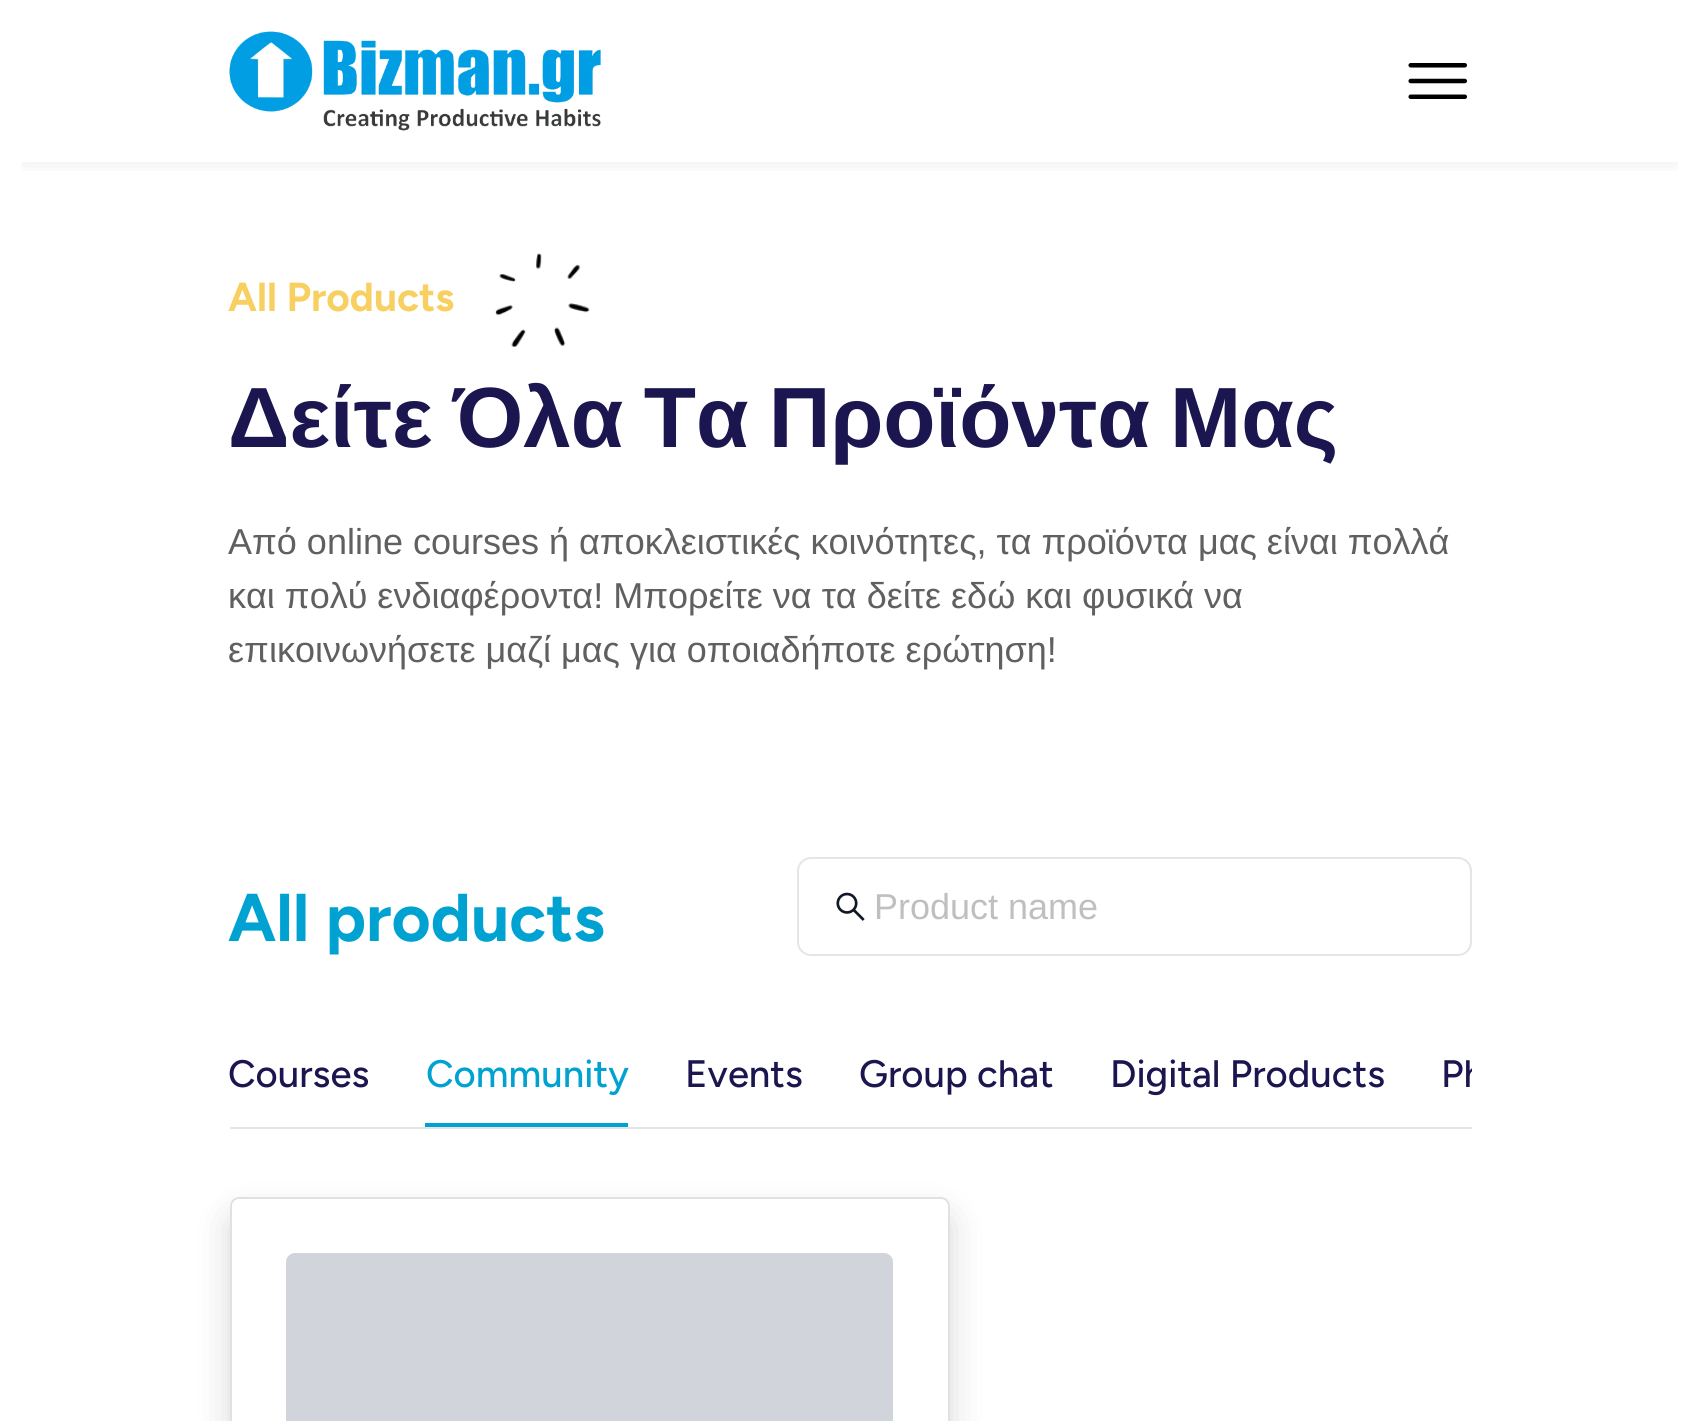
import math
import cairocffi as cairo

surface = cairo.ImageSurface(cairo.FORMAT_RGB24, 1698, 1421)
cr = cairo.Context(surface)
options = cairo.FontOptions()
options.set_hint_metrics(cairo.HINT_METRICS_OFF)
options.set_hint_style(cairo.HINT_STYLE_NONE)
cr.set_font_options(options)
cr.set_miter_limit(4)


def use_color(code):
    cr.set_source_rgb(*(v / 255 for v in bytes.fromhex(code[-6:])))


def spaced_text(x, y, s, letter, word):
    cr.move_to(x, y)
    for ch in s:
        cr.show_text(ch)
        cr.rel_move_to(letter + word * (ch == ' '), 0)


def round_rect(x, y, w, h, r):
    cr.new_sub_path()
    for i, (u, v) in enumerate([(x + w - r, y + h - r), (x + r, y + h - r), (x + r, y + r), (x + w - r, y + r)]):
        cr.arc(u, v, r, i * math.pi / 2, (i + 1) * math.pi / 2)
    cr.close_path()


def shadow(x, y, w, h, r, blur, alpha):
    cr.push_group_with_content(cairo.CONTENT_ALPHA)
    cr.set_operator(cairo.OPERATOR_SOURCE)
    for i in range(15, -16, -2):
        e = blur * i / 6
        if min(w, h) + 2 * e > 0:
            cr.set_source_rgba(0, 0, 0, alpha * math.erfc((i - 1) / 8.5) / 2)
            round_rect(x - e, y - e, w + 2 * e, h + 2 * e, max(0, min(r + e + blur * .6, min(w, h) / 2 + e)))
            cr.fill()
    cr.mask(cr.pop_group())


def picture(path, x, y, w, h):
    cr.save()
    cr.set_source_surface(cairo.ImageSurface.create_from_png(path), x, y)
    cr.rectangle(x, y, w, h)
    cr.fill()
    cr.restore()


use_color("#ffffff")
cr.paint()
cr.save()
cr.rectangle(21, 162, 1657, 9)
cr.clip()
use_color("#212326")
shadow(23, 45, 1653, 117, 0, 11, 0.1)
cr.restore()
picture("img1.png", 229, 31, 372, 100)
picture("img2.png", 1408, 63, 59, 36)
cr.select_font_face("Figtree", cairo.FONT_SLANT_NORMAL, cairo.FONT_WEIGHT_BOLD)
cr.set_font_size(40.5)
use_color("#f8cf61")
cr.move_to(228, 311)
cr.show_text("All Products")
picture("img3.png", 495, 253, 95, 94)
cr.select_font_face("Liberation Sans", cairo.FONT_SLANT_NORMAL, cairo.FONT_WEIGHT_BOLD)
cr.set_font_size(85.5)
use_color("#1b164f")
spaced_text(228, 447, "Δείτε Όλα Τα Προϊόντα Μας", 0, -3.5)
cr.select_font_face("Liberation Sans")
cr.set_font_size(36)
use_color("#606060")
cr.move_to(228, 554)
cr.show_text("Από online courses ή αποκλειστικές κοινότητες, τα προϊόντα μας είναι πολλά")
cr.move_to(228, 608)
cr.show_text("και πολύ ενδιαφέροντα! Μπορείτε να τα δείτε εδώ και φυσικά να")
cr.move_to(228, 662)
cr.show_text("επικοινωνήσετε μαζί μας για οποιαδήποτε ερώτηση!")
cr.select_font_face("Figtree", cairo.FONT_SLANT_NORMAL, cairo.FONT_WEIGHT_BOLD)
cr.set_font_size(67.5)
use_color("#00a2d2")
cr.move_to(228, 941)
cr.show_text("All products")
round_rect(798, 858, 673, 97, 13)
use_color("#e5e5e5")
cr.stroke()
picture("img4.png", 836, 892, 29, 29)
cr.select_font_face("Liberation Sans")
cr.set_font_size(36)
use_color("#bfbfbf")
cr.move_to(874, 919)
cr.show_text("Product name")
use_color("#e4e4e4")
cr.rectangle(230, 1127, 1242, 2)
cr.fill()
cr.select_font_face("Figtree Medium")
cr.set_font_size(38.25)
use_color("#1b164f")
cr.move_to(228, 1087)
cr.show_text("Courses")
use_color("#00a2d2")
cr.move_to(426, 1087)
cr.show_text("Community")
cr.rectangle(425, 1123, 203, 4)
cr.fill()
use_color("#1b164f")
cr.move_to(685, 1087)
cr.show_text("Events")
cr.move_to(859, 1087)
cr.show_text("Group chat")
cr.move_to(1110, 1087)
cr.show_text("Digital Products")
cr.save()
cr.rectangle(230, 1046, 1242, 81)
cr.clip()
cr.move_to(1441, 1087)
cr.show_text("Ph")
cr.restore()
cr.save()
cr.set_fill_rule(cairo.FILL_RULE_EVEN_ODD)
cr.new_path()
cr.move_to(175, 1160)
cr.line_to(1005, 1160)
cr.line_to(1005, 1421)
cr.line_to(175, 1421)
cr.close_path()
cr.move_to(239, 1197)
cr.line_to(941, 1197)
cr.curve_to(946, 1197, 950, 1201, 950, 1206)
cr.line_to(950, 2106)
cr.curve_to(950, 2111, 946, 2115, 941, 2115)
cr.line_to(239, 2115)
cr.curve_to(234, 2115, 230, 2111, 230, 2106)
cr.line_to(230, 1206)
cr.curve_to(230, 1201, 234, 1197, 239, 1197)
cr.close_path()
cr.clip()
use_color("#000000")
shadow(230, 1215, 720, 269, 9, 18, 0.15)
cr.restore()
round_rect(231, 1198, 718, 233, 8)
use_color("#dee2e6")
cr.stroke()
use_color("#d1d5db")
round_rect(286, 1253, 607, 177, 9)
cr.fill()
surface.write_to_png("result.png")
